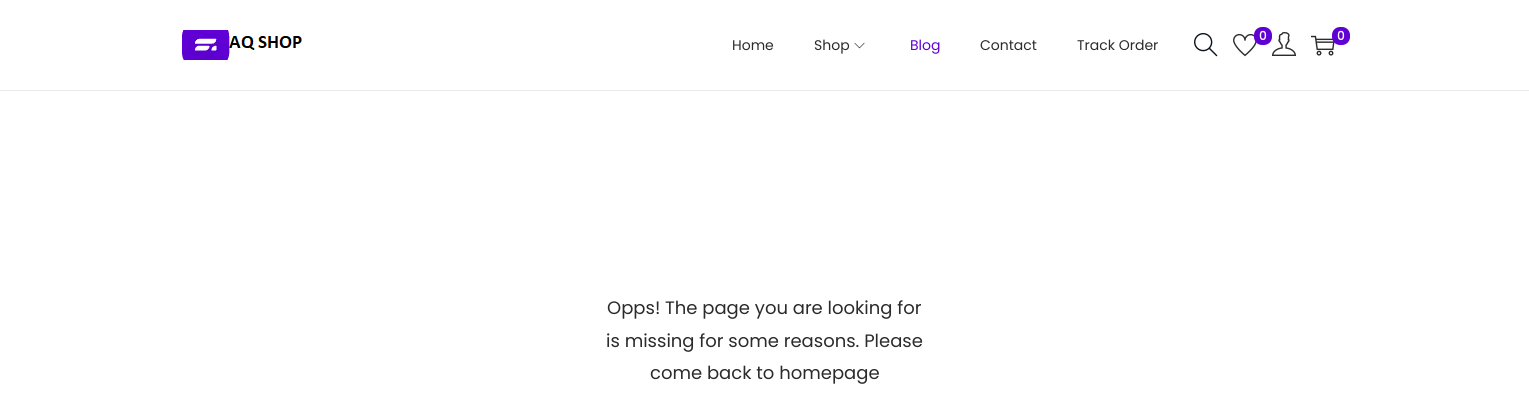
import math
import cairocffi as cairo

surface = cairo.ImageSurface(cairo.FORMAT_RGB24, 1529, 415)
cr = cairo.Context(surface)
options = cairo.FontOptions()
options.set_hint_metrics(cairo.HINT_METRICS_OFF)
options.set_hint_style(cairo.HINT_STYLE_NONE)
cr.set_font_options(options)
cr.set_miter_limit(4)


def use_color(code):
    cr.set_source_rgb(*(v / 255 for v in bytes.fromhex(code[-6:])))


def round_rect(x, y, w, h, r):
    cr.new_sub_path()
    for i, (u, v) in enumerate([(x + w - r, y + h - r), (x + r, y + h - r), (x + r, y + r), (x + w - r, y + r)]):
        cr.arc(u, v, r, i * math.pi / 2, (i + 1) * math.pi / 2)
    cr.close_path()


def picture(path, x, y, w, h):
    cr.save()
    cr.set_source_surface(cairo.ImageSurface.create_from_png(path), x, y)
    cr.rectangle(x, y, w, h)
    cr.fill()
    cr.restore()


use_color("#ffffff")
cr.paint()
use_color("#eaeaea")
cr.rectangle(0, 90, 1529, 1)
cr.fill()
picture("img1.png", 182, 30, 120, 30)
picture("img2.png", 1194, 33, 24, 24)
picture("img3.png", 1233, 33, 24, 24)
use_color("#6001d3")
round_rect(1254, 27, 18, 18, 8)
cr.fill()
cr.select_font_face("Poppins", cairo.FONT_SLANT_NORMAL, cairo.FONT_WEIGHT_BOLD)
cr.set_font_size(12)
use_color("#ffffff")
cr.move_to(1259, 40)
cr.show_text("0")
picture("img4.png", 1272, 32, 24, 24)
picture("img5.png", 1311, 35, 24, 21)
use_color("#6001d3")
round_rect(1332, 27, 18, 18, 8)
cr.fill()
use_color("#ffffff")
cr.move_to(1337, 40)
cr.show_text("0")
cr.select_font_face("Poppins")
cr.set_font_size(14)
use_color("#2b2b2b")
cr.move_to(732, 50)
cr.show_text("Home")
cr.move_to(814, 50)
cr.show_text("Shop")
picture("img6.png", 854, 42, 11, 7)
use_color("#6001d3")
cr.move_to(910, 50)
cr.show_text("Blog")
use_color("#2b2b2b")
cr.move_to(980, 50)
cr.show_text("Contact")
cr.move_to(1077, 50)
cr.show_text("Track Order")
cr.set_font_size(18)
cr.move_to(607, 314)
cr.show_text("Opps! The page you are looking for")
cr.move_to(606, 347)
cr.show_text("is missing for some reasons. Please")
cr.move_to(650, 379)
cr.show_text("come back to homepage")
surface.write_to_png("result.png")
